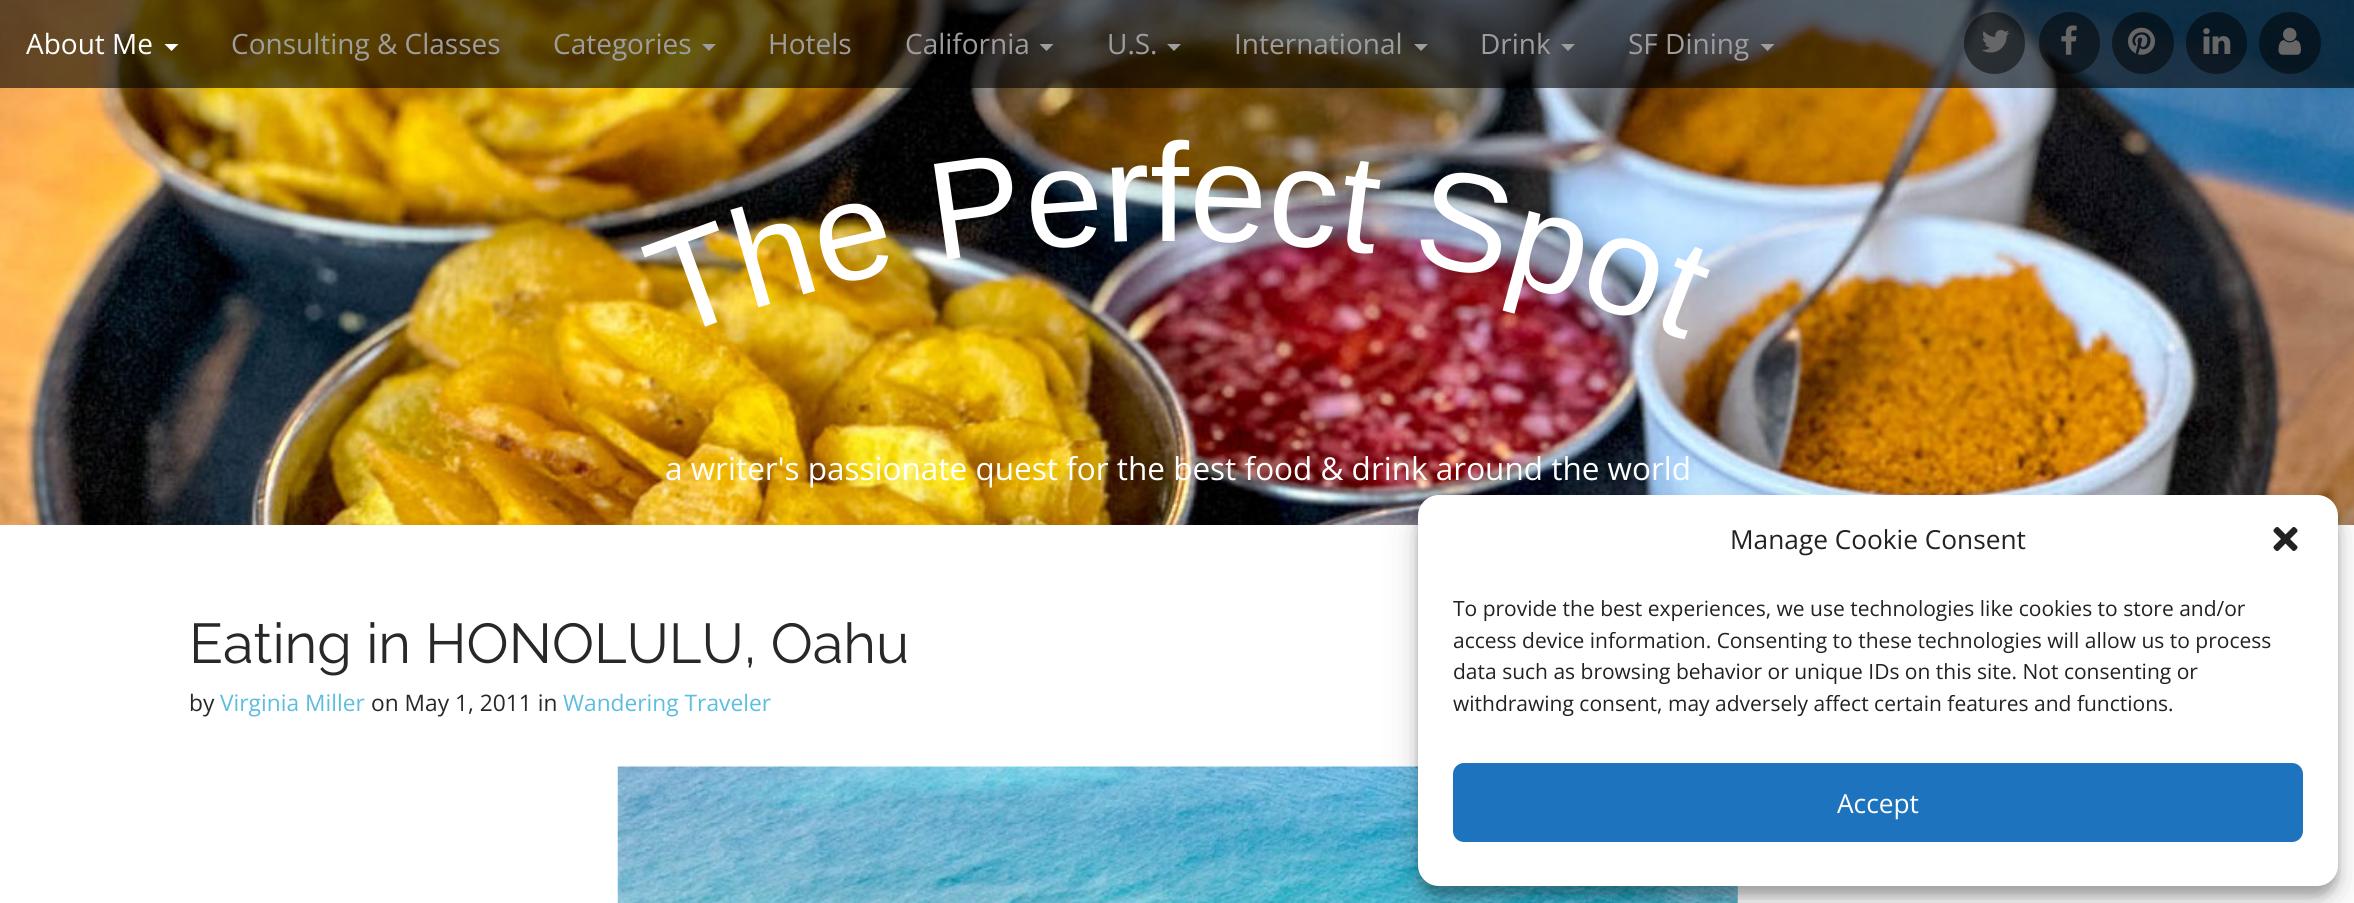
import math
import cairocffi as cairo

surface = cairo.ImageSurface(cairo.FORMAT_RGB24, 2354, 903)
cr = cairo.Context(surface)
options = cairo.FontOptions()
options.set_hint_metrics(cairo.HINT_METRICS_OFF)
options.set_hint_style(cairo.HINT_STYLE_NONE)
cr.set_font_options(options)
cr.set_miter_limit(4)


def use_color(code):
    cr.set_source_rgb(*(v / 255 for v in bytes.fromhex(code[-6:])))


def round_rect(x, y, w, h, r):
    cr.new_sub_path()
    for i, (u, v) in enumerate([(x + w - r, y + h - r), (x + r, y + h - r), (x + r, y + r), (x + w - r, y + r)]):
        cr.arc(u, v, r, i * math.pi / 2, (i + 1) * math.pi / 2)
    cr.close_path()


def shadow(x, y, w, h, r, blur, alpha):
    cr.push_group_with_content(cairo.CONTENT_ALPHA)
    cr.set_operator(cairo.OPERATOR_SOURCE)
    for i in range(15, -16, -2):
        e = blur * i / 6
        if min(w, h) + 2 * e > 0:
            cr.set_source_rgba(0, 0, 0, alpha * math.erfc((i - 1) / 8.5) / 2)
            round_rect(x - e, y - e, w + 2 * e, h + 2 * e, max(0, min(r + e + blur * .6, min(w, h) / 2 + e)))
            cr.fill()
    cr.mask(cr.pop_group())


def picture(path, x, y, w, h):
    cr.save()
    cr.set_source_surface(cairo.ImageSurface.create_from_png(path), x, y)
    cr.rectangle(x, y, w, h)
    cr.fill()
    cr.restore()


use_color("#ffffff")
cr.paint()
picture("img6.png", 0, 0, 2354, 525)
cr.set_source_rgba(0, 0, 0, 0.6)
cr.rectangle(0, 0, 2354, 88)
cr.fill()
cr.select_font_face("Open Sans")
cr.set_font_size(28)
use_color("#ffffff")
cr.move_to(26, 54)
cr.show_text("About Me")
cr.new_path()
cr.move_to(164.5, 44)
cr.line_to(178.5, 44)
cr.line_to(171.5, 51)
cr.close_path()
cr.fill()
use_color("#9d9d9d")
cr.move_to(231, 54)
cr.show_text("Consulting & Classes")
cr.move_to(553, 54)
cr.show_text("Categories")
cr.new_path()
cr.move_to(702, 44)
cr.line_to(716, 44)
cr.line_to(709, 51)
cr.close_path()
cr.fill()
cr.move_to(768, 54)
cr.show_text("Hotels")
cr.move_to(905, 54)
cr.show_text("California")
cr.new_path()
cr.move_to(1039.5, 44)
cr.line_to(1053.5, 44)
cr.line_to(1046.5, 51)
cr.close_path()
cr.fill()
cr.move_to(1107, 54)
cr.show_text("U.S.")
cr.new_path()
cr.move_to(1167, 44)
cr.line_to(1181, 44)
cr.line_to(1174, 51)
cr.close_path()
cr.fill()
cr.move_to(1234, 54)
cr.show_text("International")
cr.new_path()
cr.move_to(1414, 44)
cr.line_to(1428, 44)
cr.line_to(1421, 51)
cr.close_path()
cr.fill()
cr.move_to(1480, 54)
cr.show_text("Drink")
cr.new_path()
cr.move_to(1561, 44)
cr.line_to(1575, 44)
cr.line_to(1568, 51)
cr.close_path()
cr.fill()
cr.move_to(1628, 54)
cr.show_text("SF Dining")
cr.new_path()
cr.move_to(1760.5, 44)
cr.line_to(1774.5, 44)
cr.line_to(1767.5, 51)
cr.close_path()
cr.fill()
cr.set_source_rgba(0, 0, 0, 0.5)
round_rect(1964, 12, 61, 62, 30.5)
cr.fill()
picture("img1.png", 1982, 30, 28, 23)
round_rect(2039, 12, 61, 62, 30.5)
cr.fill()
picture("img2.png", 2061, 25, 16, 30)
cr.arc(2143, 43, 31, 0, 2 * math.pi)
cr.fill()
picture("img3.png", 2128, 27, 27, 28)
round_rect(2186, 12, 61, 62, 30.5)
cr.fill()
picture("img4.png", 2203, 28, 28, 26)
cr.arc(2290, 43, 31, 0, 2 * math.pi)
cr.fill()
picture("img5.png", 2278, 27, 23, 28)
cr.select_font_face("Liberation Sans")
cr.set_font_size(140)
use_color("#ffffff")
cr.save()
cr.translate(671, 339)
cr.rotate(-20 * math.pi / 180)
cr.move_to(0, 0)
cr.show_text("T")
cr.restore()
cr.save()
cr.translate(749, 310)
cr.rotate(-16 * math.pi / 180)
cr.move_to(0, 0)
cr.show_text("h")
cr.restore()
cr.save()
cr.translate(824, 287)
cr.rotate(-13 * math.pi / 180)
cr.move_to(0, 0)
cr.show_text("e")
cr.restore()
cr.save()
cr.translate(936, 261)
cr.rotate(-8 * math.pi / 180)
cr.move_to(0, 0)
cr.show_text("P")
cr.restore()
cr.save()
cr.translate(1028, 249)
cr.rotate(-4 * math.pi / 180)
cr.move_to(0, 0)
cr.show_text("e")
cr.restore()
cr.save()
cr.translate(1105, 242)
cr.rotate(-2 * math.pi / 180)
cr.move_to(0, 0)
cr.show_text("r")
cr.restore()
cr.move_to(1150, 241)
cr.show_text("f")
cr.save()
cr.translate(1188, 240)
cr.rotate(2 * math.pi / 180)
cr.move_to(0, 0)
cr.show_text("e")
cr.restore()
cr.save()
cr.translate(1265, 243)
cr.rotate(5 * math.pi / 180)
cr.move_to(0, 0)
cr.show_text("c")
cr.restore()
cr.save()
cr.translate(1335, 249)
cr.rotate(7 * math.pi / 180)
cr.move_to(0, 0)
cr.show_text("t")
cr.restore()
cr.save()
cr.translate(1410, 261)
cr.rotate(11 * math.pi / 180)
cr.move_to(0, 0)
cr.show_text("S")
cr.restore()
cr.save()
cr.translate(1501, 280)
cr.rotate(15 * math.pi / 180)
cr.move_to(0, 0)
cr.show_text("p")
cr.restore()
cr.save()
cr.translate(1575, 300)
cr.rotate(18 * math.pi / 180)
cr.move_to(0, 0)
cr.show_text("o")
cr.restore()
cr.save()
cr.translate(1649, 326)
cr.rotate(21 * math.pi / 180)
cr.move_to(0, 0)
cr.show_text("t")
cr.restore()
cr.select_font_face("Open Sans")
cr.set_font_size(31.5)
cr.move_to(665, 480)
cr.show_text("a writer's passionate quest for the best food & drink around the world")
cr.select_font_face("Raleway Thin")
cr.set_font_size(56)
use_color("#282828")
cr.move_to(189, 663)
cr.show_text("Eating in HONOLULU, Oahu")
cr.select_font_face("Open Sans")
cr.set_font_size(22.75)
cr.move_to(189, 711)
cr.show_text("by")
use_color("#5cbde0")
cr.move_to(220, 711)
cr.show_text("Virginia Miller")
use_color("#282828")
cr.move_to(371, 711)
cr.show_text("on May 1, 2011 in")
use_color("#5cbde0")
cr.move_to(563, 711)
cr.show_text("Wandering Traveler")
picture("img7.png", 617, 766, 1121, 137)
use_color("#000000")
shadow(1418, 506, 920, 390, 21, 5, 0.23)
shadow(1418, 513, 920, 390, 21, 17.5, 0.19)
use_color("#ffffff")
round_rect(1418, 495, 920, 391, 21)
cr.fill()
cr.set_font_size(26.25)
use_color("#222222")
cr.move_to(1730, 549)
cr.show_text("Manage Cookie Consent")
picture("img8.png", 2273, 527, 25, 24)
cr.set_font_size(21)
cr.move_to(1453, 616)
cr.show_text("To provide the best experiences, we use technologies like cookies to store and/or")
cr.move_to(1453, 648)
cr.show_text("access device information. Consenting to these technologies will allow us to process")
cr.move_to(1453, 679)
cr.show_text("data such as browsing behavior or unique IDs on this site. Not consenting or")
cr.move_to(1453, 711)
cr.show_text("withdrawing consent, may adversely affect certain features and functions.")
use_color("#1e73be")
round_rect(1454, 764, 848, 77, 10)
cr.fill_preserve()
cr.stroke()
cr.set_font_size(26.25)
use_color("#ffffff")
cr.move_to(1837, 813)
cr.show_text("Accept")
surface.write_to_png("result.png")
